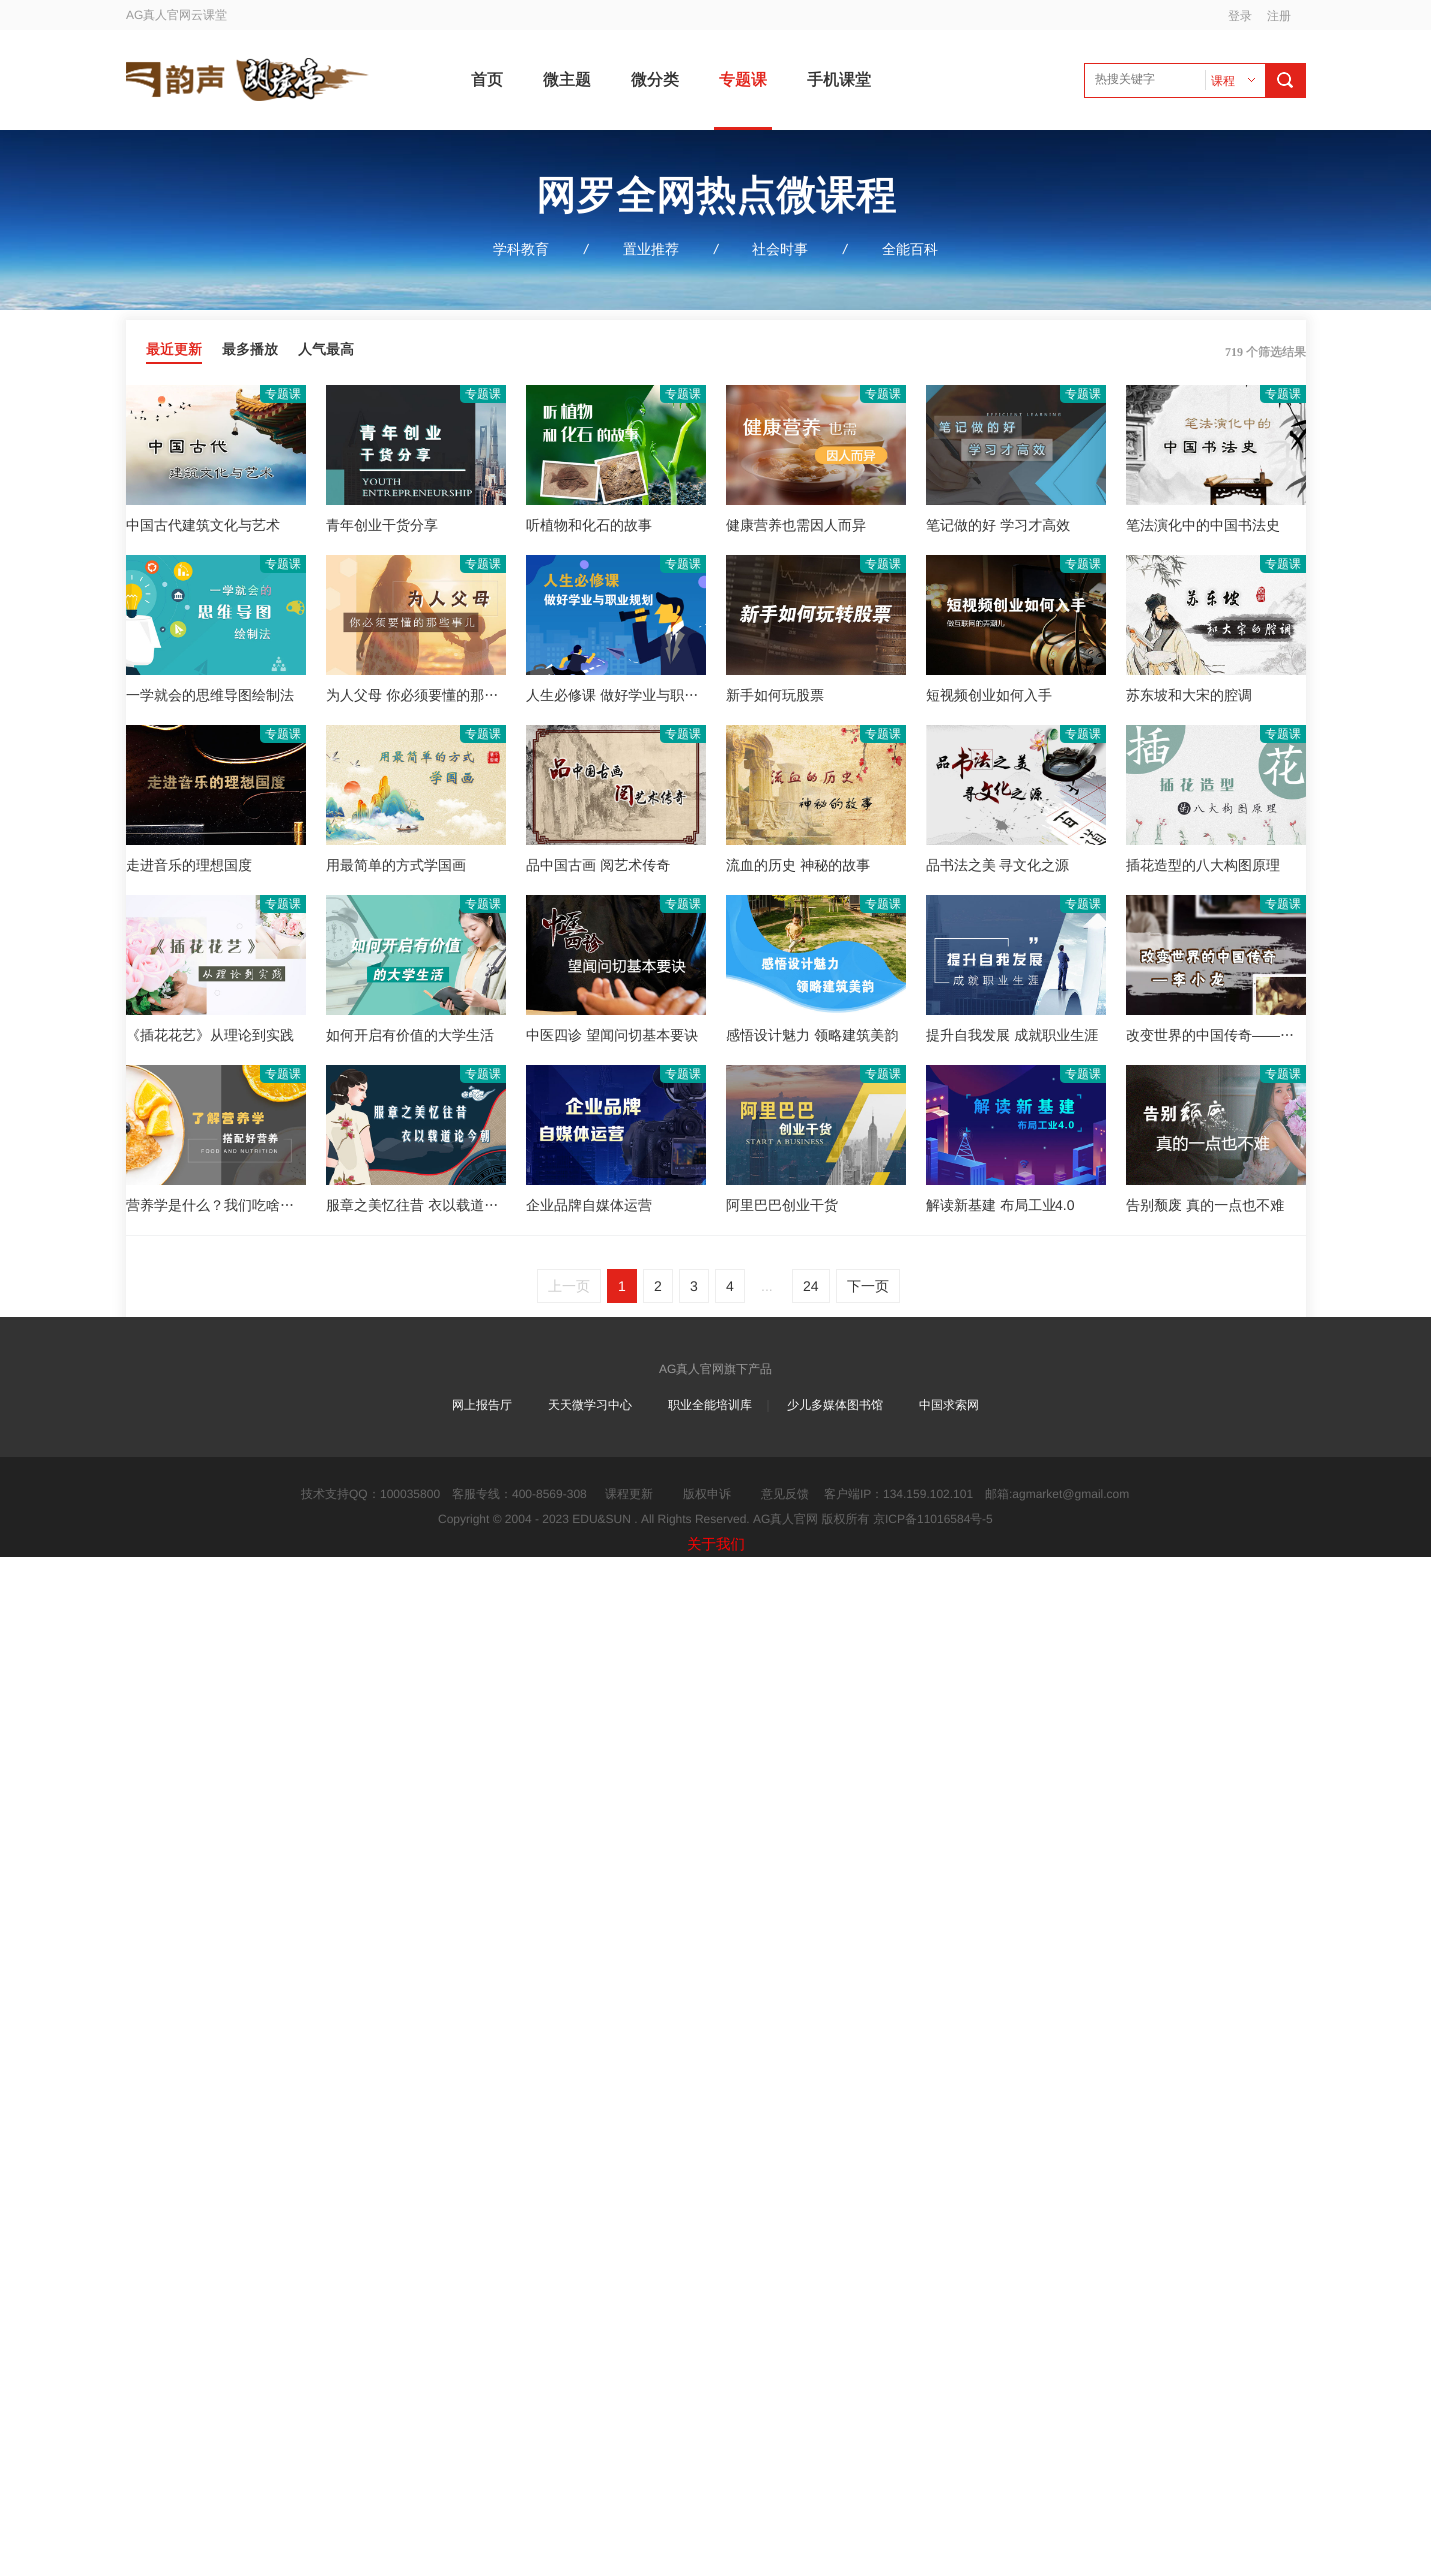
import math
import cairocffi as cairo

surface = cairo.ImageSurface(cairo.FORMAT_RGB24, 1431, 2551)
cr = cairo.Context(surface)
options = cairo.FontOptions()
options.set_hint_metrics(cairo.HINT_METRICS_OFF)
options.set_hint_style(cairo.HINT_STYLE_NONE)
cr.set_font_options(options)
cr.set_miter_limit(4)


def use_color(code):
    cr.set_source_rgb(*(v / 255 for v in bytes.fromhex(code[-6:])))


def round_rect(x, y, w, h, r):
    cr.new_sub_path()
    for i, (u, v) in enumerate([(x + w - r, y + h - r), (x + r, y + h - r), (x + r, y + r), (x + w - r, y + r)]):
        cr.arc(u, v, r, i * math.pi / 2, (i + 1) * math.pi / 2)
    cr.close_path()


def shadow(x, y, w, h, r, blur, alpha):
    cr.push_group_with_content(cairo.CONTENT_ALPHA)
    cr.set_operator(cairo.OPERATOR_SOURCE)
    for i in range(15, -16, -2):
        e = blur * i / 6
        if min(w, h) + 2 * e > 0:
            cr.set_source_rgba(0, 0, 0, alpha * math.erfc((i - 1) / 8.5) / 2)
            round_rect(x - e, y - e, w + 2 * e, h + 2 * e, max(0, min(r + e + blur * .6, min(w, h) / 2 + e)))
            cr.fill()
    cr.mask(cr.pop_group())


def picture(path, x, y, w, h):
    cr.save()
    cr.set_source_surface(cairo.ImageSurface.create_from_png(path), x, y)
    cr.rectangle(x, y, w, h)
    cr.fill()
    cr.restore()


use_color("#ffffff")
cr.paint()
use_color("#fafafa")
cr.rectangle(0, 0, 1431, 30)
cr.fill()
cr.select_font_face("Liberation Sans")
cr.set_font_size(12)
use_color("#999999")
cr.move_to(126, 19)
cr.show_text("AG")
cr.select_font_face("WenQuanYi Zen Hei Medium")
cr.move_to(143, 19)
cr.show_text("真人官网云课堂")
cr.move_to(1228, 20)
cr.show_text("登录")
cr.move_to(1267, 20)
cr.show_text("注册")
picture("img1.png", 126, 58, 243, 43)
cr.select_font_face("WenQuanYi Zen Hei", cairo.FONT_SLANT_NORMAL, cairo.FONT_WEIGHT_BOLD)
cr.set_font_size(16)
use_color("#333333")
cr.move_to(471, 85)
cr.show_text("首页")
cr.move_to(543, 85)
cr.show_text("微主题")
cr.move_to(631, 85)
cr.show_text("微分类")
use_color("#e2231a")
cr.rectangle(714, 127, 58, 3)
cr.fill()
cr.move_to(719, 85)
cr.show_text("专题课")
use_color("#333333")
cr.move_to(807, 85)
cr.show_text("手机课堂")
cr.rectangle(1084.5, 63.5, 221, 34)
use_color("#e2231a")
cr.set_line_width(1)
cr.stroke()
cr.select_font_face("WenQuanYi Zen Hei Medium")
cr.set_font_size(12)
use_color("#757575")
cr.move_to(1095, 83)
cr.show_text("热搜关键字")
use_color("#dddddd")
cr.rectangle(1205, 70, 1, 20)
cr.fill()
use_color("#e2231a")
cr.move_to(1211, 85)
cr.show_text("课程")
picture("img2.png", 1248, 78, 7, 4)
cr.rectangle(1265, 64, 40, 33)
cr.fill()
picture("img3.png", 1277, 72, 16, 16)
cr.save()
cr.set_fill_rule(cairo.FILL_RULE_EVEN_ODD)
cr.new_path()
cr.move_to(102, 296)
cr.line_to(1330, 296)
cr.line_to(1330, 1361)
cr.line_to(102, 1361)
cr.close_path()
cr.move_to(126, 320)
cr.line_to(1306, 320)
cr.line_to(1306, 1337)
cr.line_to(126, 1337)
cr.close_path()
cr.clip()
use_color("#000000")
shadow(126, 320, 1180, 1017, 0, 7.5, 0.1)
cr.restore()
picture("img4.png", 0, 130, 1431, 180)
cr.select_font_face("WenQuanYi Zen Hei", cairo.FONT_SLANT_NORMAL, cairo.FONT_WEIGHT_BOLD)
cr.set_font_size(40)
use_color("#ffffff")
cr.move_to(536, 209)
cr.show_text("网罗全网热点微课程")
cr.select_font_face("WenQuanYi Zen Hei Medium")
cr.set_font_size(14)
cr.move_to(493, 254)
cr.show_text("学科教育")
cr.select_font_face("Liberation Sans", cairo.FONT_SLANT_ITALIC)
cr.move_to(584, 254)
cr.show_text("/")
cr.select_font_face("WenQuanYi Zen Hei Medium")
cr.move_to(623, 254)
cr.show_text("置业推荐")
cr.select_font_face("Liberation Sans", cairo.FONT_SLANT_ITALIC)
cr.move_to(714, 254)
cr.show_text("/")
cr.select_font_face("WenQuanYi Zen Hei Medium")
cr.move_to(752, 254)
cr.show_text("社会时事")
cr.select_font_face("Liberation Sans", cairo.FONT_SLANT_ITALIC)
cr.move_to(843, 254)
cr.show_text("/")
cr.select_font_face("WenQuanYi Zen Hei Medium")
cr.move_to(882, 254)
cr.show_text("全能百科")
use_color("#e2231a")
cr.rectangle(146, 362, 56, 2)
cr.fill()
cr.select_font_face("WenQuanYi Zen Hei", cairo.FONT_SLANT_NORMAL, cairo.FONT_WEIGHT_BOLD)
cr.move_to(146, 354)
cr.show_text("最近更新")
use_color("#333333")
cr.move_to(222, 354)
cr.show_text("最多播放")
cr.move_to(298, 354)
cr.show_text("人气最高")
cr.select_font_face("Liberation Serif", cairo.FONT_SLANT_NORMAL, cairo.FONT_WEIGHT_BOLD)
cr.set_font_size(12)
use_color("#999999")
cr.move_to(1225, 356)
cr.show_text("719")
cr.select_font_face("WenQuanYi Zen Hei", cairo.FONT_SLANT_NORMAL, cairo.FONT_WEIGHT_BOLD)
cr.move_to(1246, 356)
cr.show_text("个筛选结果")
picture("img5.png", 126, 385, 180, 120)
use_color("#009e96")
cr.new_path()
cr.move_to(260, 385)
cr.line_to(306, 385)
cr.line_to(306, 403)
cr.line_to(265, 403)
cr.curve_to(262, 403, 260, 401, 260, 398)
cr.close_path()
cr.fill()
cr.select_font_face("WenQuanYi Zen Hei Medium")
use_color("#ffffff")
cr.move_to(265, 398)
cr.show_text("专题课")
cr.set_font_size(14)
use_color("#333333")
cr.move_to(126, 530)
cr.show_text("中国古代建筑文化与艺术")
picture("img6.png", 326, 385, 180, 120)
use_color("#009e96")
cr.new_path()
cr.move_to(460, 385)
cr.line_to(506, 385)
cr.line_to(506, 403)
cr.line_to(465, 403)
cr.curve_to(462, 403, 460, 401, 460, 398)
cr.close_path()
cr.fill()
cr.set_font_size(12)
use_color("#ffffff")
cr.move_to(465, 398)
cr.show_text("专题课")
cr.set_font_size(14)
use_color("#333333")
cr.move_to(326, 530)
cr.show_text("青年创业干货分享")
picture("img7.png", 526, 385, 180, 120)
use_color("#009e96")
cr.new_path()
cr.move_to(660, 385)
cr.line_to(706, 385)
cr.line_to(706, 403)
cr.line_to(665, 403)
cr.curve_to(662, 403, 660, 401, 660, 398)
cr.close_path()
cr.fill()
cr.set_font_size(12)
use_color("#ffffff")
cr.move_to(665, 398)
cr.show_text("专题课")
cr.set_font_size(14)
use_color("#333333")
cr.move_to(526, 530)
cr.show_text("听植物和化石的故事")
picture("img8.png", 726, 385, 180, 120)
use_color("#009e96")
cr.new_path()
cr.move_to(860, 385)
cr.line_to(906, 385)
cr.line_to(906, 403)
cr.line_to(865, 403)
cr.curve_to(862, 403, 860, 401, 860, 398)
cr.close_path()
cr.fill()
cr.set_font_size(12)
use_color("#ffffff")
cr.move_to(865, 398)
cr.show_text("专题课")
cr.set_font_size(14)
use_color("#333333")
cr.move_to(726, 530)
cr.show_text("健康营养也需因人而异")
picture("img9.png", 926, 385, 180, 120)
use_color("#009e96")
cr.new_path()
cr.move_to(1060, 385)
cr.line_to(1106, 385)
cr.line_to(1106, 403)
cr.line_to(1065, 403)
cr.curve_to(1062, 403, 1060, 401, 1060, 398)
cr.close_path()
cr.fill()
cr.set_font_size(12)
use_color("#ffffff")
cr.move_to(1065, 398)
cr.show_text("专题课")
cr.set_font_size(14)
use_color("#333333")
cr.move_to(926, 530)
cr.show_text("笔记做的好 学习才高效")
picture("img10.png", 1126, 385, 180, 120)
use_color("#009e96")
cr.new_path()
cr.move_to(1260, 385)
cr.line_to(1306, 385)
cr.line_to(1306, 403)
cr.line_to(1265, 403)
cr.curve_to(1262, 403, 1260, 401, 1260, 398)
cr.close_path()
cr.fill()
cr.set_font_size(12)
use_color("#ffffff")
cr.move_to(1265, 398)
cr.show_text("专题课")
cr.set_font_size(14)
use_color("#333333")
cr.move_to(1126, 530)
cr.show_text("笔法演化中的中国书法史")
picture("img11.png", 126, 555, 180, 120)
use_color("#009e96")
cr.new_path()
cr.move_to(260, 555)
cr.line_to(306, 555)
cr.line_to(306, 573)
cr.line_to(265, 573)
cr.curve_to(262, 573, 260, 571, 260, 568)
cr.close_path()
cr.fill()
cr.set_font_size(12)
use_color("#ffffff")
cr.move_to(265, 568)
cr.show_text("专题课")
cr.set_font_size(14)
use_color("#333333")
cr.move_to(126, 700)
cr.show_text("一学就会的思维导图绘制法")
picture("img12.png", 326, 555, 180, 120)
use_color("#009e96")
cr.new_path()
cr.move_to(460, 555)
cr.line_to(506, 555)
cr.line_to(506, 573)
cr.line_to(465, 573)
cr.curve_to(462, 573, 460, 571, 460, 568)
cr.close_path()
cr.fill()
cr.set_font_size(12)
use_color("#ffffff")
cr.move_to(465, 568)
cr.show_text("专题课")
cr.set_font_size(14)
use_color("#333333")
cr.move_to(326, 700)
cr.show_text("为人父母 你必须要懂的那…")
picture("img13.png", 526, 555, 180, 120)
use_color("#009e96")
cr.new_path()
cr.move_to(660, 555)
cr.line_to(706, 555)
cr.line_to(706, 573)
cr.line_to(665, 573)
cr.curve_to(662, 573, 660, 571, 660, 568)
cr.close_path()
cr.fill()
cr.set_font_size(12)
use_color("#ffffff")
cr.move_to(665, 568)
cr.show_text("专题课")
cr.set_font_size(14)
use_color("#333333")
cr.move_to(526, 700)
cr.show_text("人生必修课 做好学业与职…")
picture("img14.png", 726, 555, 180, 120)
use_color("#009e96")
cr.new_path()
cr.move_to(860, 555)
cr.line_to(906, 555)
cr.line_to(906, 573)
cr.line_to(865, 573)
cr.curve_to(862, 573, 860, 571, 860, 568)
cr.close_path()
cr.fill()
cr.set_font_size(12)
use_color("#ffffff")
cr.move_to(865, 568)
cr.show_text("专题课")
cr.set_font_size(14)
use_color("#333333")
cr.move_to(726, 700)
cr.show_text("新手如何玩股票")
picture("img15.png", 926, 555, 180, 120)
use_color("#009e96")
cr.new_path()
cr.move_to(1060, 555)
cr.line_to(1106, 555)
cr.line_to(1106, 573)
cr.line_to(1065, 573)
cr.curve_to(1062, 573, 1060, 571, 1060, 568)
cr.close_path()
cr.fill()
cr.set_font_size(12)
use_color("#ffffff")
cr.move_to(1065, 568)
cr.show_text("专题课")
cr.set_font_size(14)
use_color("#333333")
cr.move_to(926, 700)
cr.show_text("短视频创业如何入手")
picture("img16.png", 1126, 555, 180, 120)
use_color("#009e96")
cr.new_path()
cr.move_to(1260, 555)
cr.line_to(1306, 555)
cr.line_to(1306, 573)
cr.line_to(1265, 573)
cr.curve_to(1262, 573, 1260, 571, 1260, 568)
cr.close_path()
cr.fill()
cr.set_font_size(12)
use_color("#ffffff")
cr.move_to(1265, 568)
cr.show_text("专题课")
cr.set_font_size(14)
use_color("#333333")
cr.move_to(1126, 700)
cr.show_text("苏东坡和大宋的腔调")
picture("img17.png", 126, 725, 180, 120)
use_color("#009e96")
cr.new_path()
cr.move_to(260, 725)
cr.line_to(306, 725)
cr.line_to(306, 743)
cr.line_to(265, 743)
cr.curve_to(262, 743, 260, 741, 260, 738)
cr.close_path()
cr.fill()
cr.set_font_size(12)
use_color("#ffffff")
cr.move_to(265, 738)
cr.show_text("专题课")
cr.set_font_size(14)
use_color("#333333")
cr.move_to(126, 870)
cr.show_text("走进音乐的理想国度")
picture("img18.png", 326, 725, 180, 120)
use_color("#009e96")
cr.new_path()
cr.move_to(460, 725)
cr.line_to(506, 725)
cr.line_to(506, 743)
cr.line_to(465, 743)
cr.curve_to(462, 743, 460, 741, 460, 738)
cr.close_path()
cr.fill()
cr.set_font_size(12)
use_color("#ffffff")
cr.move_to(465, 738)
cr.show_text("专题课")
cr.set_font_size(14)
use_color("#333333")
cr.move_to(326, 870)
cr.show_text("用最简单的方式学国画")
picture("img19.png", 526, 725, 180, 120)
use_color("#009e96")
cr.new_path()
cr.move_to(660, 725)
cr.line_to(706, 725)
cr.line_to(706, 743)
cr.line_to(665, 743)
cr.curve_to(662, 743, 660, 741, 660, 738)
cr.close_path()
cr.fill()
cr.set_font_size(12)
use_color("#ffffff")
cr.move_to(665, 738)
cr.show_text("专题课")
cr.set_font_size(14)
use_color("#333333")
cr.move_to(526, 870)
cr.show_text("品中国古画 阅艺术传奇")
picture("img20.png", 726, 725, 180, 120)
use_color("#009e96")
cr.new_path()
cr.move_to(860, 725)
cr.line_to(906, 725)
cr.line_to(906, 743)
cr.line_to(865, 743)
cr.curve_to(862, 743, 860, 741, 860, 738)
cr.close_path()
cr.fill()
cr.set_font_size(12)
use_color("#ffffff")
cr.move_to(865, 738)
cr.show_text("专题课")
cr.set_font_size(14)
use_color("#333333")
cr.move_to(726, 870)
cr.show_text("流血的历史 神秘的故事")
picture("img21.png", 926, 725, 180, 120)
use_color("#009e96")
cr.new_path()
cr.move_to(1060, 725)
cr.line_to(1106, 725)
cr.line_to(1106, 743)
cr.line_to(1065, 743)
cr.curve_to(1062, 743, 1060, 741, 1060, 738)
cr.close_path()
cr.fill()
cr.set_font_size(12)
use_color("#ffffff")
cr.move_to(1065, 738)
cr.show_text("专题课")
cr.set_font_size(14)
use_color("#333333")
cr.move_to(926, 870)
cr.show_text("品书法之美")
cr.move_to(999, 870)
cr.show_text("寻文化之源")
picture("img22.png", 1126, 725, 180, 120)
use_color("#009e96")
cr.new_path()
cr.move_to(1260, 725)
cr.line_to(1306, 725)
cr.line_to(1306, 743)
cr.line_to(1265, 743)
cr.curve_to(1262, 743, 1260, 741, 1260, 738)
cr.close_path()
cr.fill()
cr.set_font_size(12)
use_color("#ffffff")
cr.move_to(1265, 738)
cr.show_text("专题课")
cr.set_font_size(14)
use_color("#333333")
cr.move_to(1126, 870)
cr.show_text("插花造型的八大构图原理")
picture("img23.png", 126, 895, 180, 120)
use_color("#009e96")
cr.new_path()
cr.move_to(260, 895)
cr.line_to(306, 895)
cr.line_to(306, 913)
cr.line_to(265, 913)
cr.curve_to(262, 913, 260, 911, 260, 908)
cr.close_path()
cr.fill()
cr.set_font_size(12)
use_color("#ffffff")
cr.move_to(265, 908)
cr.show_text("专题课")
cr.set_font_size(14)
use_color("#333333")
cr.move_to(126, 1040)
cr.show_text("《插花花艺》从理论到实践")
picture("img24.png", 326, 895, 180, 120)
use_color("#009e96")
cr.new_path()
cr.move_to(460, 895)
cr.line_to(506, 895)
cr.line_to(506, 913)
cr.line_to(465, 913)
cr.curve_to(462, 913, 460, 911, 460, 908)
cr.close_path()
cr.fill()
cr.set_font_size(12)
use_color("#ffffff")
cr.move_to(465, 908)
cr.show_text("专题课")
cr.set_font_size(14)
use_color("#333333")
cr.move_to(326, 1040)
cr.show_text("如何开启有价值的大学生活")
picture("img25.png", 526, 895, 180, 120)
use_color("#009e96")
cr.new_path()
cr.move_to(660, 895)
cr.line_to(706, 895)
cr.line_to(706, 913)
cr.line_to(665, 913)
cr.curve_to(662, 913, 660, 911, 660, 908)
cr.close_path()
cr.fill()
cr.set_font_size(12)
use_color("#ffffff")
cr.move_to(665, 908)
cr.show_text("专题课")
cr.set_font_size(14)
use_color("#333333")
cr.move_to(526, 1040)
cr.show_text("中医四诊 望闻问切基本要诀")
picture("img26.png", 726, 895, 180, 120)
use_color("#009e96")
cr.new_path()
cr.move_to(860, 895)
cr.line_to(906, 895)
cr.line_to(906, 913)
cr.line_to(865, 913)
cr.curve_to(862, 913, 860, 911, 860, 908)
cr.close_path()
cr.fill()
cr.set_font_size(12)
use_color("#ffffff")
cr.move_to(865, 908)
cr.show_text("专题课")
cr.set_font_size(14)
use_color("#333333")
cr.move_to(726, 1040)
cr.show_text("感悟设计魅力 领略建筑美韵")
picture("img27.png", 926, 895, 180, 120)
use_color("#009e96")
cr.new_path()
cr.move_to(1060, 895)
cr.line_to(1106, 895)
cr.line_to(1106, 913)
cr.line_to(1065, 913)
cr.curve_to(1062, 913, 1060, 911, 1060, 908)
cr.close_path()
cr.fill()
cr.set_font_size(12)
use_color("#ffffff")
cr.move_to(1065, 908)
cr.show_text("专题课")
cr.set_font_size(14)
use_color("#333333")
cr.move_to(926, 1040)
cr.show_text("提升自我发展 成就职业生涯")
picture("img28.png", 1126, 895, 180, 120)
use_color("#009e96")
cr.new_path()
cr.move_to(1260, 895)
cr.line_to(1306, 895)
cr.line_to(1306, 913)
cr.line_to(1265, 913)
cr.curve_to(1262, 913, 1260, 911, 1260, 908)
cr.close_path()
cr.fill()
cr.set_font_size(12)
use_color("#ffffff")
cr.move_to(1265, 908)
cr.show_text("专题课")
cr.set_font_size(14)
use_color("#333333")
cr.move_to(1126, 1040)
cr.show_text("改变世界的中国传奇")
cr.select_font_face("Liberation Sans")
cr.move_to(1252, 1040)
cr.show_text("——")
cr.select_font_face("WenQuanYi Zen Hei Medium")
cr.move_to(1280, 1040)
cr.show_text("…")
picture("img29.png", 126, 1065, 180, 120)
use_color("#009e96")
cr.new_path()
cr.move_to(260, 1065)
cr.line_to(306, 1065)
cr.line_to(306, 1083)
cr.line_to(265, 1083)
cr.curve_to(262, 1083, 260, 1081, 260, 1078)
cr.close_path()
cr.fill()
cr.set_font_size(12)
use_color("#ffffff")
cr.move_to(265, 1078)
cr.show_text("专题课")
cr.set_font_size(14)
use_color("#333333")
cr.move_to(126, 1210)
cr.show_text("营养学是什么？我们吃啥…")
picture("img30.png", 326, 1065, 180, 120)
use_color("#009e96")
cr.new_path()
cr.move_to(460, 1065)
cr.line_to(506, 1065)
cr.line_to(506, 1083)
cr.line_to(465, 1083)
cr.curve_to(462, 1083, 460, 1081, 460, 1078)
cr.close_path()
cr.fill()
cr.set_font_size(12)
use_color("#ffffff")
cr.move_to(465, 1078)
cr.show_text("专题课")
cr.set_font_size(14)
use_color("#333333")
cr.move_to(326, 1210)
cr.show_text("服章之美忆往昔 衣以载道…")
picture("img31.png", 526, 1065, 180, 120)
use_color("#009e96")
cr.new_path()
cr.move_to(660, 1065)
cr.line_to(706, 1065)
cr.line_to(706, 1083)
cr.line_to(665, 1083)
cr.curve_to(662, 1083, 660, 1081, 660, 1078)
cr.close_path()
cr.fill()
cr.set_font_size(12)
use_color("#ffffff")
cr.move_to(665, 1078)
cr.show_text("专题课")
cr.set_font_size(14)
use_color("#333333")
cr.move_to(526, 1210)
cr.show_text("企业品牌自媒体运营")
picture("img32.png", 726, 1065, 180, 120)
use_color("#009e96")
cr.new_path()
cr.move_to(860, 1065)
cr.line_to(906, 1065)
cr.line_to(906, 1083)
cr.line_to(865, 1083)
cr.curve_to(862, 1083, 860, 1081, 860, 1078)
cr.close_path()
cr.fill()
cr.set_font_size(12)
use_color("#ffffff")
cr.move_to(865, 1078)
cr.show_text("专题课")
cr.set_font_size(14)
use_color("#333333")
cr.move_to(726, 1210)
cr.show_text("阿里巴巴创业干货")
picture("img33.png", 926, 1065, 180, 120)
use_color("#009e96")
cr.new_path()
cr.move_to(1060, 1065)
cr.line_to(1106, 1065)
cr.line_to(1106, 1083)
cr.line_to(1065, 1083)
cr.curve_to(1062, 1083, 1060, 1081, 1060, 1078)
cr.close_path()
cr.fill()
cr.set_font_size(12)
use_color("#ffffff")
cr.move_to(1065, 1078)
cr.show_text("专题课")
cr.set_font_size(14)
use_color("#333333")
cr.move_to(926, 1210)
cr.show_text("解读新基建 布局工业")
cr.select_font_face("Liberation Sans")
cr.move_to(1055, 1210)
cr.show_text("4.0")
picture("img34.png", 1126, 1065, 180, 120)
use_color("#009e96")
cr.new_path()
cr.move_to(1260, 1065)
cr.line_to(1306, 1065)
cr.line_to(1306, 1083)
cr.line_to(1265, 1083)
cr.curve_to(1262, 1083, 1260, 1081, 1260, 1078)
cr.close_path()
cr.fill()
cr.select_font_face("WenQuanYi Zen Hei Medium")
cr.set_font_size(12)
use_color("#ffffff")
cr.move_to(1265, 1078)
cr.show_text("专题课")
cr.set_font_size(14)
use_color("#333333")
cr.move_to(1126, 1210)
cr.show_text("告别颓废 真的一点也不难")
use_color("#f1f2f3")
cr.rectangle(126, 1235, 1180, 1)
cr.fill()
cr.rectangle(537.5, 1269.5, 63, 33)
use_color("#eeeeee")
cr.stroke()
use_color("#cccccc")
cr.move_to(548, 1291)
cr.show_text("上一页")
use_color("#e2231a")
cr.rectangle(607, 1269, 30, 34)
cr.fill()
cr.select_font_face("Liberation Sans")
use_color("#ffffff")
cr.move_to(618, 1291)
cr.show_text("1")
cr.rectangle(643.5, 1269.5, 29, 33)
use_color("#eeeeee")
cr.stroke()
use_color("#333333")
cr.move_to(654, 1291)
cr.show_text("2")
cr.rectangle(679.5, 1269.5, 29, 33)
use_color("#eeeeee")
cr.stroke()
use_color("#333333")
cr.move_to(690, 1291)
cr.show_text("3")
cr.rectangle(715.5, 1269.5, 29, 33)
use_color("#eeeeee")
cr.stroke()
use_color("#333333")
cr.move_to(726, 1291)
cr.show_text("4")
use_color("#cccccc")
cr.move_to(761, 1291)
cr.show_text("...")
cr.rectangle(792.5, 1269.5, 37, 33)
use_color("#eeeeee")
cr.stroke()
use_color("#333333")
cr.move_to(803, 1291)
cr.show_text("24")
cr.rectangle(836.5, 1269.5, 63, 33)
use_color("#eeeeee")
cr.stroke()
cr.select_font_face("WenQuanYi Zen Hei Medium")
use_color("#333333")
cr.move_to(847, 1291)
cr.show_text("下一页")
cr.rectangle(0, 1317, 1431, 140)
cr.fill()
cr.select_font_face("Liberation Sans")
cr.set_font_size(12)
use_color("#999999")
cr.move_to(659, 1373)
cr.show_text("AG")
cr.select_font_face("WenQuanYi Zen Hei Medium")
cr.move_to(676, 1373)
cr.show_text("真人官网旗下产品")
use_color("#ffffff")
cr.move_to(452, 1409)
cr.show_text("网上报告厅")
cr.move_to(548, 1409)
cr.show_text("天天微学习中心")
cr.move_to(668, 1409)
cr.show_text("职业全能培训库")
use_color("#4d4d4d")
cr.move_to(762, 1409)
cr.show_text("｜")
use_color("#ffffff")
cr.move_to(787, 1409)
cr.show_text("少儿多媒体图书馆")
cr.move_to(919, 1409)
cr.show_text("中国求索网")
use_color("#222222")
cr.rectangle(0, 1457, 1431, 100)
cr.fill()
use_color("#666666")
cr.move_to(301, 1498)
cr.show_text("技术支持")
cr.select_font_face("Liberation Sans")
cr.move_to(349, 1498)
cr.show_text("QQ")
cr.select_font_face("WenQuanYi Zen Hei Medium")
cr.move_to(368, 1498)
cr.show_text("：")
cr.select_font_face("Liberation Sans")
cr.move_to(380, 1498)
cr.show_text("100035800")
cr.select_font_face("WenQuanYi Zen Hei Medium")
cr.move_to(452, 1498)
cr.show_text("客服专线：")
cr.select_font_face("Liberation Sans")
cr.move_to(512, 1498)
cr.show_text("400-8569-308")
cr.select_font_face("WenQuanYi Zen Hei Medium")
cr.move_to(605, 1498)
cr.show_text("课程更新")
cr.move_to(683, 1498)
cr.show_text("版权申诉")
cr.move_to(761, 1498)
cr.show_text("意见反馈")
cr.move_to(824, 1498)
cr.show_text("客户端")
cr.select_font_face("Liberation Sans")
cr.move_to(860, 1498)
cr.show_text("IP")
cr.select_font_face("WenQuanYi Zen Hei Medium")
cr.move_to(871, 1498)
cr.show_text("：")
cr.select_font_face("Liberation Sans")
cr.move_to(883, 1498)
cr.show_text("134.159.102.101")
cr.select_font_face("WenQuanYi Zen Hei Medium")
cr.move_to(985, 1498)
cr.show_text("邮箱")
cr.select_font_face("Liberation Sans")
cr.move_to(1009, 1498)
cr.show_text(":agmarket@gmail.com")
cr.move_to(438, 1523)
cr.show_text("Copyright © 2004 - 2023 EDU&SUN . All Rights Reserved. AG")
cr.select_font_face("WenQuanYi Zen Hei Medium")
cr.move_to(770, 1523)
cr.show_text("真人官网 版权所有 京")
cr.select_font_face("Liberation Sans")
cr.move_to(885, 1523)
cr.show_text("ICP")
cr.select_font_face("WenQuanYi Zen Hei Medium")
cr.move_to(905, 1523)
cr.show_text("备")
cr.select_font_face("Liberation Sans")
cr.move_to(917, 1523)
cr.show_text("11016584")
cr.select_font_face("WenQuanYi Zen Hei Medium")
cr.move_to(970, 1523)
cr.show_text("号")
cr.select_font_face("Liberation Sans")
cr.move_to(982, 1523)
cr.show_text("-5")
cr.select_font_face("WenQuanYi Zen Hei Medium")
cr.set_font_size(14.5)
use_color("#ff0000")
cr.move_to(687, 1549)
cr.show_text("关于我们")
surface.write_to_png("result.png")
